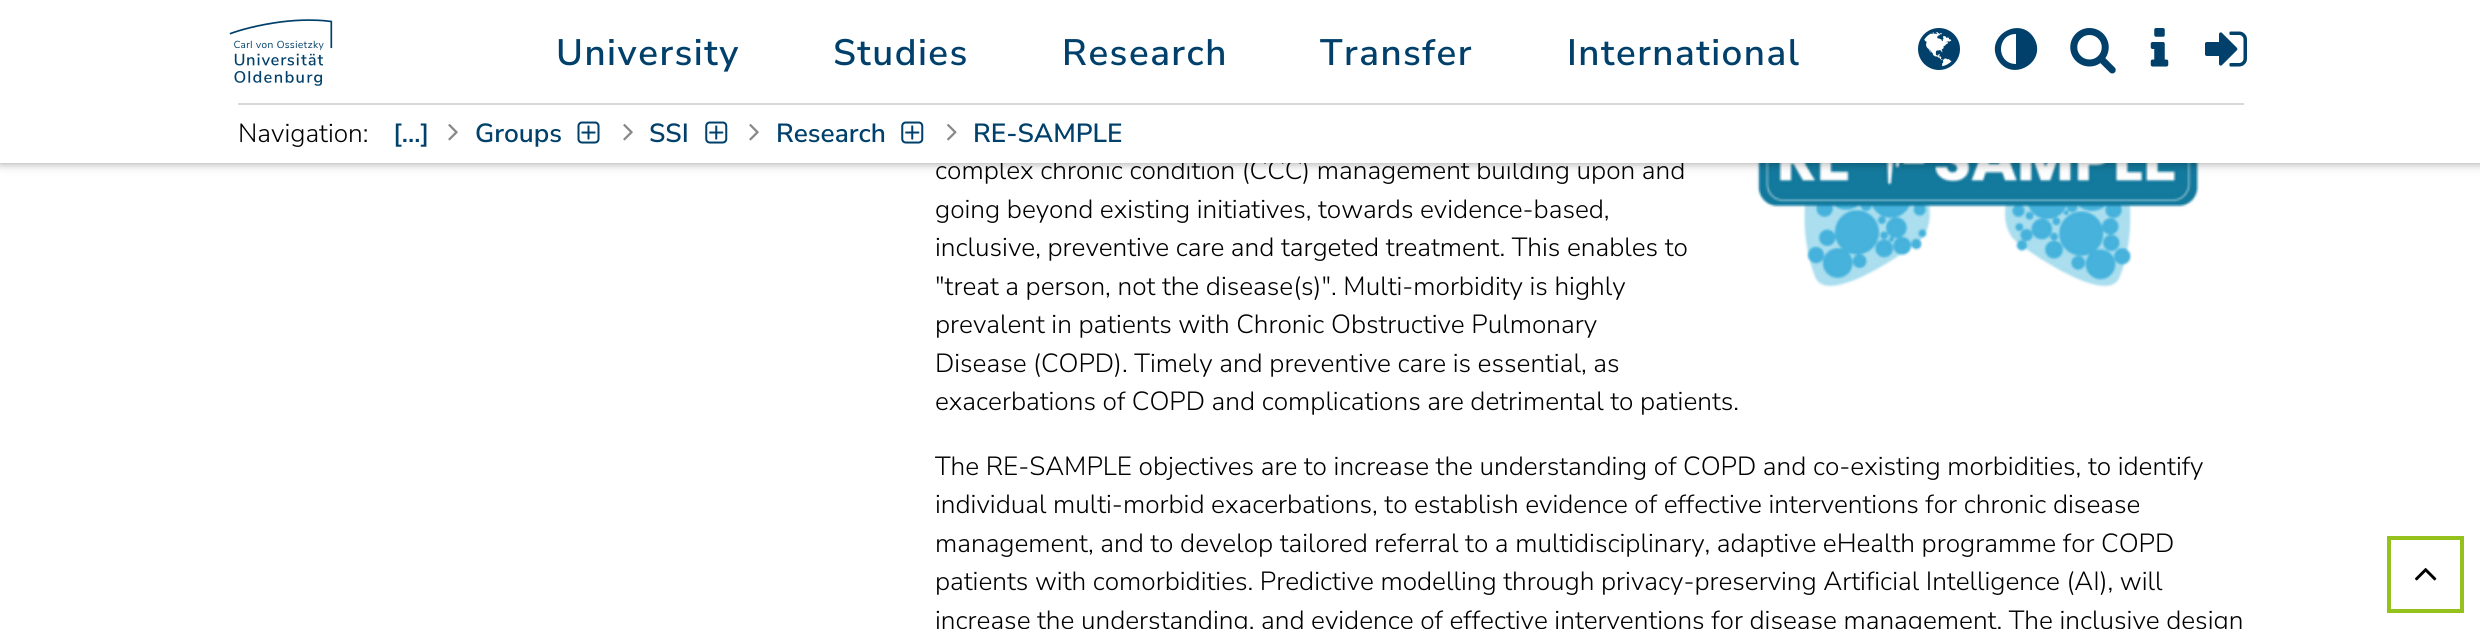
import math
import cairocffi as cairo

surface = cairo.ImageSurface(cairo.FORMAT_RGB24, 2480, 629)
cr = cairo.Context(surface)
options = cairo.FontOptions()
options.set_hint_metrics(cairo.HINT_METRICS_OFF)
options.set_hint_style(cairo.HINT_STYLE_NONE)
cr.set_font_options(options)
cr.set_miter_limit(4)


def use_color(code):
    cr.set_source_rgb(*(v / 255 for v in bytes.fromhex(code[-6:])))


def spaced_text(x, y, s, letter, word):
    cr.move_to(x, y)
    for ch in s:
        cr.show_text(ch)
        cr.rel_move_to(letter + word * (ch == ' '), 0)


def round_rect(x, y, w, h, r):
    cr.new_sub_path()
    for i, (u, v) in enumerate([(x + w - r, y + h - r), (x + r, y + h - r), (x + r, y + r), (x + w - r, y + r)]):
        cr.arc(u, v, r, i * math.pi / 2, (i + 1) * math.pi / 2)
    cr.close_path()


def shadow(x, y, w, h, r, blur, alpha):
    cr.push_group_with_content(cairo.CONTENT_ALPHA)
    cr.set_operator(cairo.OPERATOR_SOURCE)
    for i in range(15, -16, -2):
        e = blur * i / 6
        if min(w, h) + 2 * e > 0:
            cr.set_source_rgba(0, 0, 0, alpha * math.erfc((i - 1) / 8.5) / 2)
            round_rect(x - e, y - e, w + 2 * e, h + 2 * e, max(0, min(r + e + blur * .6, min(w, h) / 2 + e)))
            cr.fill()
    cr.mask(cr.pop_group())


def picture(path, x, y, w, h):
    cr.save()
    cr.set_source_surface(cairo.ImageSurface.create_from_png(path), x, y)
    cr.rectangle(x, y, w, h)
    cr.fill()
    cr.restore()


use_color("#ffffff")
cr.paint()
picture("img10.png", 1756, 163, 444, 125)
use_color("#000000")
shadow(0, 0, 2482, 163, 0, 5, 0.4)
cr.select_font_face("Nunito Sans Light")
cr.set_font_size(26.25)
use_color("#000000")
cr.move_to(935, 179)
cr.show_text("complex chronic condition (CCC) management building upon and")
use_color("#ffffff")
cr.rectangle(0, 0, 2480, 163)
cr.fill()
picture("img1.png", 229, 19, 104, 67)
cr.select_font_face("Nunito Sans SemiBold")
cr.set_font_size(36.75)
use_color("#00406b")
spaced_text(556, 65, "University", 1.5, 0)
spaced_text(833, 65, "Studies", 1.5, 0)
spaced_text(1062, 65, "Research", 1.5, 0)
spaced_text(1320, 65, "Transfer", 1.5, 0)
spaced_text(1567, 65, "International", 1.5, 0)
picture("img2.png", 1918, 28, 42, 42)
cr.new_path()
cr.move_to(2016, 64)
cr.line_to(2016, 34)
cr.curve_to(1996, 34, 1996, 64, 2016, 64)
cr.close_path()
cr.move_to(2034, 38)
cr.curve_to(2048, 62, 2012, 83, 1998, 60)
cr.curve_to(1984, 36, 2020, 15, 2034, 38)
cr.close_path()
cr.fill()
picture("img3.png", 2070, 28, 46, 46)
picture("img4.png", 2150, 28, 19, 39)
picture("img5.png", 2205, 31, 42, 36)
use_color("#d8d8d8")
cr.rectangle(238, 103, 2006, 2)
cr.fill()
cr.select_font_face("Nunito Sans Light")
cr.set_font_size(26.25)
use_color("#000000")
cr.move_to(238, 142)
cr.show_text("Navigation:")
cr.select_font_face("Nunito Sans SemiBold")
use_color("#00406b")
cr.move_to(393, 142)
cr.show_text("[…]")
picture("img6.png", 448, 124, 10, 17)
cr.move_to(475, 142)
cr.show_text("Groups")
picture("img7.png", 577, 121, 23, 23)
picture("img6.png", 623, 124, 10, 17)
cr.move_to(649, 142)
cr.show_text("SSI")
picture("img8.png", 705, 121, 23, 23)
picture("img6.png", 749, 124, 10, 17)
cr.move_to(776, 142)
cr.show_text("Research")
picture("img8.png", 901, 121, 23, 23)
picture("img9.png", 947, 124, 10, 17)
cr.move_to(973, 142)
cr.show_text("RE-SAMPLE")
cr.select_font_face("Nunito Sans Light")
use_color("#000000")
cr.move_to(935, 218)
cr.show_text("going beyond existing initiatives, towards evidence-based,")
cr.move_to(935, 256)
cr.show_text("inclusive, preventive care and targeted treatment. This enables to")
cr.move_to(935, 295)
cr.show_text("\"treat a person, not the disease(s)\". Multi-morbidity is highly")
cr.move_to(935, 333)
cr.show_text("prevalent in patients with Chronic Obstructive Pulmonary")
cr.move_to(935, 372)
cr.show_text("Disease (COPD). Timely and preventive care is essential, as")
cr.move_to(935, 410)
cr.show_text("exacerbations of COPD and complications are detrimental to patients.")
cr.move_to(935, 475)
cr.show_text("The RE-SAMPLE objectives are to increase the understanding of COPD and co-existing morbidities, to identify")
cr.move_to(935, 513)
cr.show_text("individual multi-morbid exacerbations, to establish evidence of effective interventions for chronic disease")
cr.move_to(935, 552)
cr.show_text("management, and to develop tailored referral to a multidisciplinary, adaptive eHealth programme for COPD")
cr.move_to(935, 590)
cr.show_text("patients with comorbidities. Predictive modelling through privacy-preserving Artificial Intelligence (AI), will")
cr.move_to(935, 629)
cr.show_text("increase the understanding, and evidence of effective interventions for disease management. The inclusive design")
cr.rectangle(2389, 538, 73, 73)
use_color("#94c11c")
cr.set_line_width(4)
cr.stroke()
picture("img11.png", 2415, 568, 22, 13)
surface.write_to_png("result.png")
